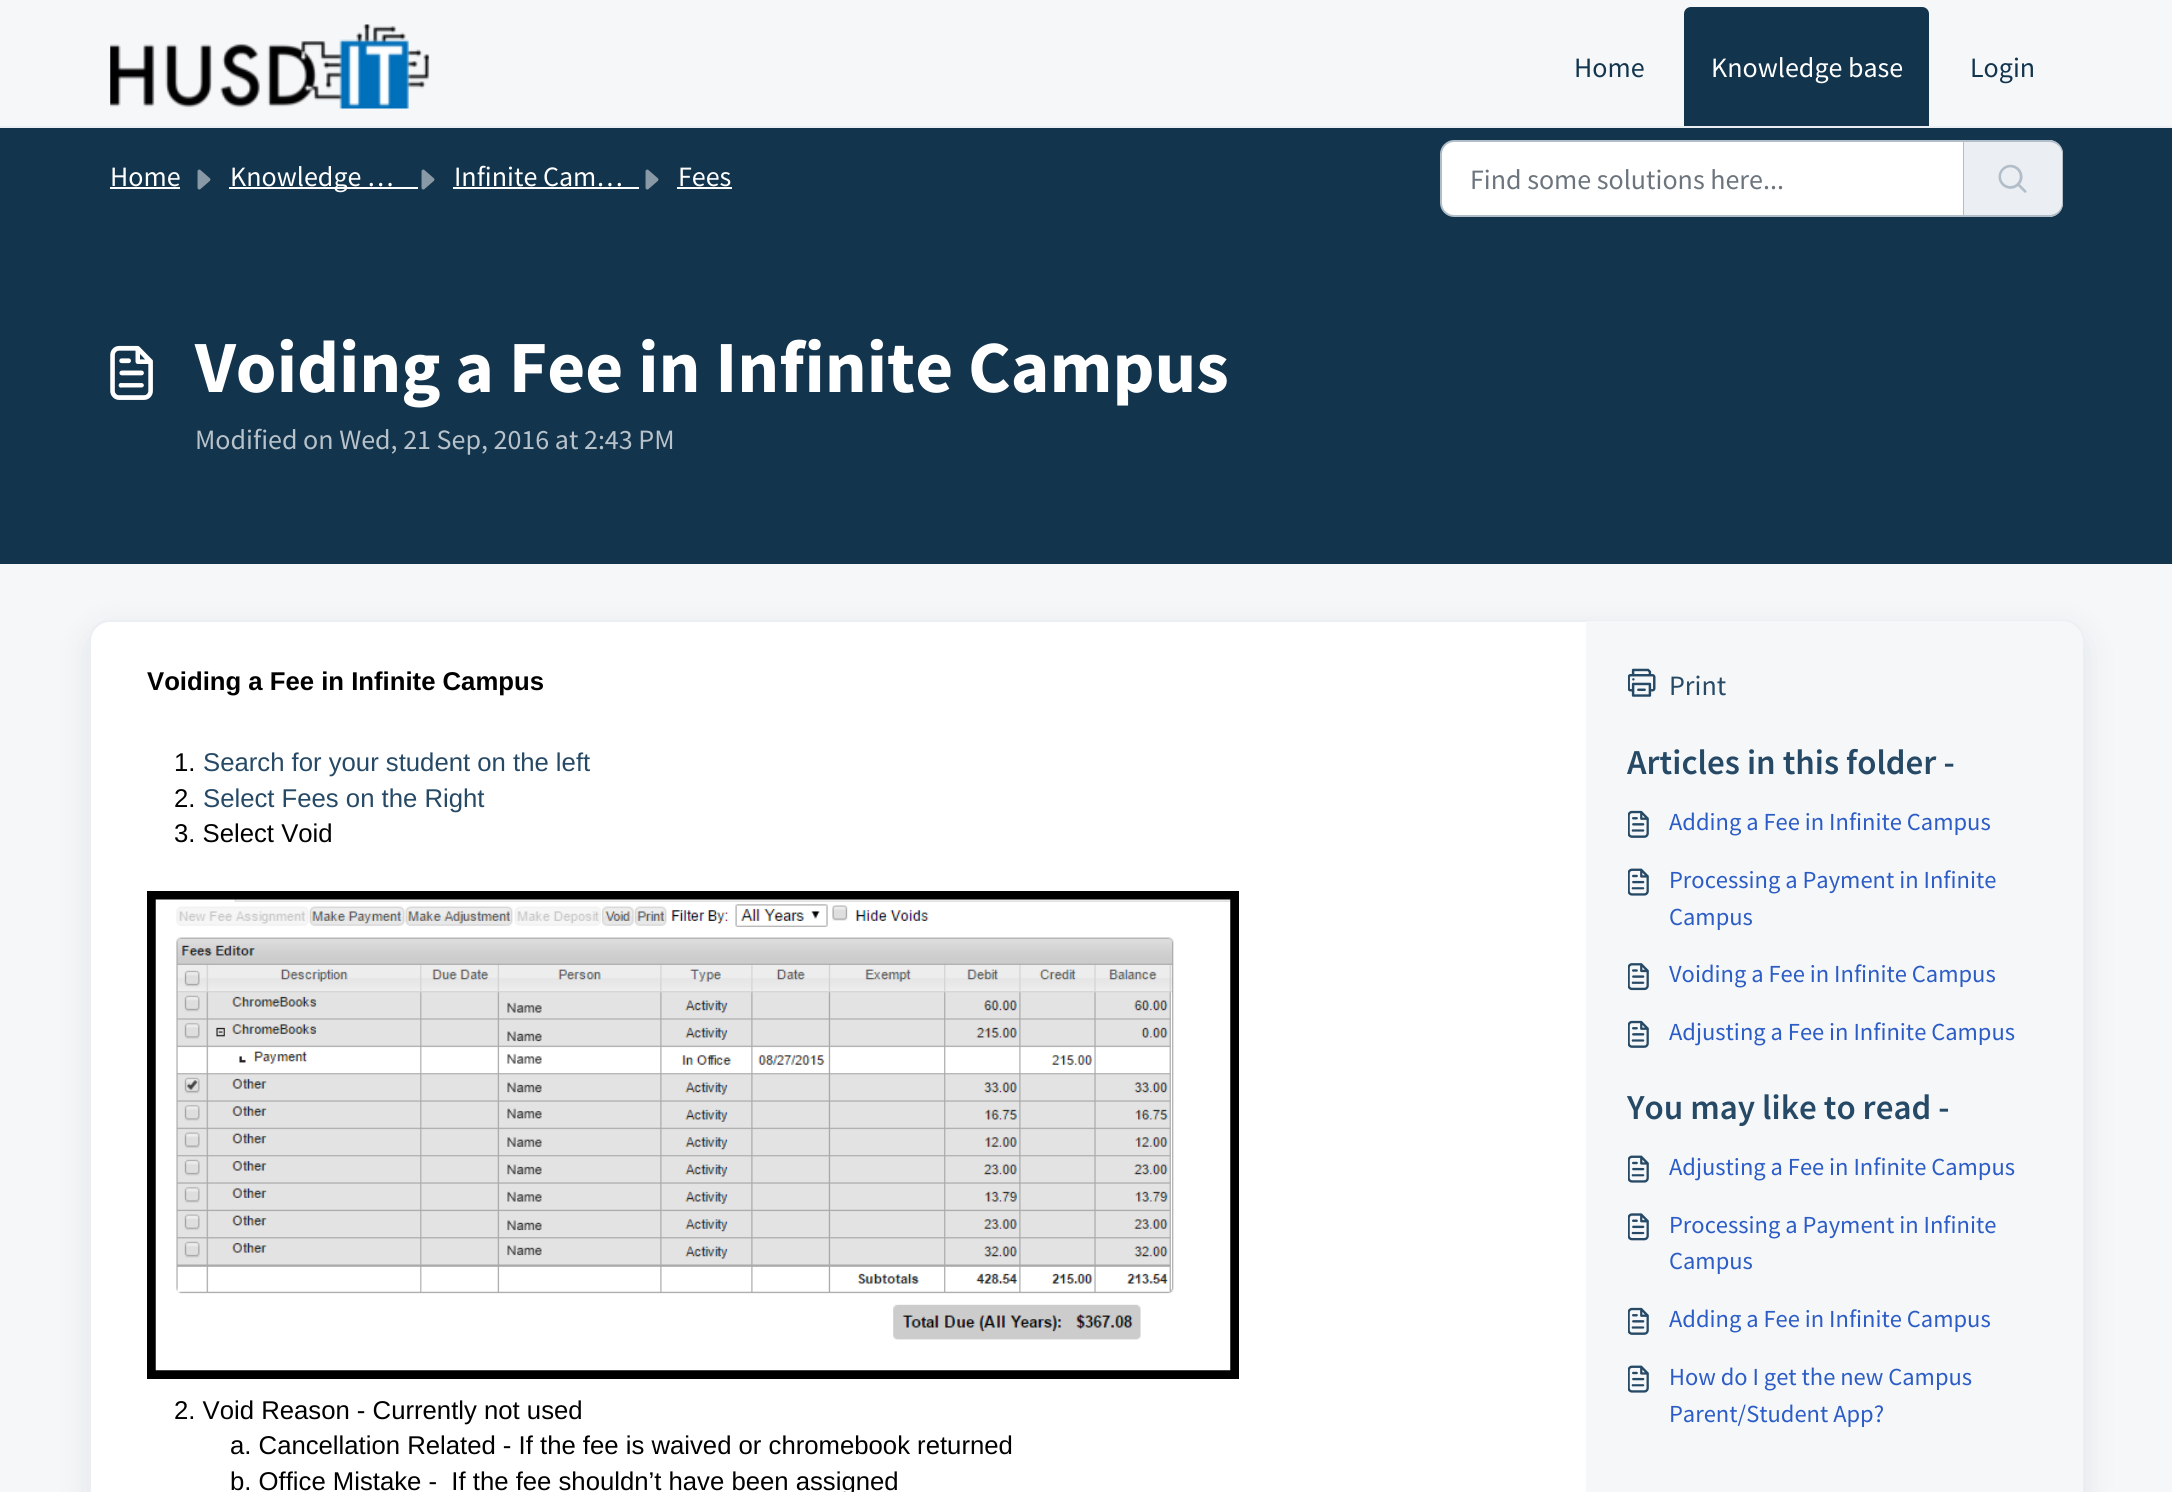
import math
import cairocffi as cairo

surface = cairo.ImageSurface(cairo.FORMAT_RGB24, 2172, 1492)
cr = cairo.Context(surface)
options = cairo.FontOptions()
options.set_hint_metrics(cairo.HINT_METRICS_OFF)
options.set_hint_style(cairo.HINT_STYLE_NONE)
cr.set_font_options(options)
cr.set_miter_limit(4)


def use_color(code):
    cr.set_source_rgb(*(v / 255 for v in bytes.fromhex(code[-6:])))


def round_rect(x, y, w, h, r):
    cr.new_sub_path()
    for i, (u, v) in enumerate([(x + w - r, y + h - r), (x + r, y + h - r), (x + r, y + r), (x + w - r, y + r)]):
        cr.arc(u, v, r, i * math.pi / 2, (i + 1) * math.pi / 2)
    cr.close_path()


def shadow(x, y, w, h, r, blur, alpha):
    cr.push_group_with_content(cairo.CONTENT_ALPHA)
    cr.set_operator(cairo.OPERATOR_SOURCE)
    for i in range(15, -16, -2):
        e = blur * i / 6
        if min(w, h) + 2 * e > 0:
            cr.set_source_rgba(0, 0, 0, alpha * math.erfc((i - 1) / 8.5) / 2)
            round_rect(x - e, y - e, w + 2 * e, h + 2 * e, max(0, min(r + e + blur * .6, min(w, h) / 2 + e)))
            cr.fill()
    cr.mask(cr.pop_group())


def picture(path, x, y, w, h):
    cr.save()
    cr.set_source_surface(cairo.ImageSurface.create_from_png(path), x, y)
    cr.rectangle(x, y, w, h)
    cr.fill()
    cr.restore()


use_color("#f5f7f9")
cr.paint()
use_color("#ebeff3")
cr.rectangle(0, 126, 2172, 2)
cr.fill()
picture("img1.png", 110, 24, 320, 85)
cr.select_font_face("Source Sans Pro")
cr.set_font_size(28)
use_color("#12344d")
cr.move_to(1574, 77)
cr.show_text("Home")
cr.new_path()
cr.move_to(1691, 7)
cr.line_to(1922, 7)
cr.curve_to(1926, 7, 1929, 10, 1929, 14)
cr.line_to(1929, 126)
cr.line_to(1684, 126)
cr.line_to(1684, 14)
cr.curve_to(1684, 10, 1687, 7, 1691, 7)
cr.close_path()
cr.fill()
use_color("#ffffff")
cr.move_to(1711, 77)
cr.show_text("Knowledge base")
use_color("#12344d")
cr.move_to(1970, 77)
cr.show_text("Login")
cr.rectangle(0, 128, 2172, 436)
cr.fill()
use_color("#ffffff")
cr.move_to(110, 186)
cr.show_text("Home")
cr.rectangle(110, 187, 70, 2)
cr.fill()
picture("img2.png", 197, 169, 14, 21)
cr.rectangle(229, 187, 189, 2)
cr.fill()
cr.move_to(230, 186)
cr.show_text("Knowledge …")
picture("img2.png", 421, 169, 14, 21)
cr.move_to(454, 186)
cr.show_text("Infinite Cam…")
cr.rectangle(453, 187, 186, 2)
cr.fill()
picture("img2.png", 645, 169, 14, 21)
cr.move_to(678, 186)
cr.show_text("Fees")
cr.rectangle(677, 187, 55, 2)
cr.fill()
cr.new_path()
cr.move_to(1454, 141)
cr.line_to(1964, 141)
cr.line_to(1964, 216)
cr.line_to(1454, 216)
cr.curve_to(1447, 216, 1441, 210, 1441, 203)
cr.line_to(1441, 154)
cr.curve_to(1441, 147, 1447, 141, 1454, 141)
cr.close_path()
cr.fill_preserve()
use_color("#b1bdc8")
cr.stroke()
use_color("#6c757d")
cr.move_to(1470, 189)
cr.show_text("Find some solutions here...")
use_color("#ebeff3")
cr.new_path()
cr.move_to(1964, 140)
cr.line_to(2049, 140)
cr.curve_to(2056.5, 140, 2063, 146.5, 2063, 154)
cr.line_to(2063, 203)
cr.curve_to(2063, 210.5, 2056.5, 217, 2049, 217)
cr.line_to(1964, 217)
cr.close_path()
cr.fill()
use_color("#b1bdc8")
cr.set_fill_rule(cairo.FILL_RULE_EVEN_ODD)
cr.new_path()
cr.move_to(1964, 140)
cr.line_to(2049, 140)
cr.curve_to(2057, 140, 2063, 146, 2063, 154)
cr.line_to(2063, 203)
cr.curve_to(2063, 211, 2057, 217, 2049, 217)
cr.line_to(1964, 217)
cr.close_path()
cr.move_to(1964, 142)
cr.line_to(2049, 142)
cr.curve_to(2056, 142, 2062, 147, 2062, 154)
cr.line_to(2062, 203)
cr.curve_to(2062, 210, 2056, 215, 2049, 215)
cr.line_to(1964, 215)
cr.close_path()
cr.fill()
picture("img3.png", 1998, 164, 29, 29)
picture("img4.png", 110, 345, 43, 55)
cr.select_font_face("Source Sans Pro", cairo.FONT_SLANT_NORMAL, cairo.FONT_WEIGHT_BOLD)
cr.set_font_size(73.5)
use_color("#ffffff")
cr.move_to(195, 392)
cr.show_text("Voiding a Fee in Infinite Campus")
cr.select_font_face("Source Sans Pro")
cr.set_font_size(28)
use_color("#b8c2ca")
cr.move_to(195, 449)
cr.show_text("Modified on Wed, 21 Sep, 2016 at 2:43 PM")
use_color("#27313a")
shadow(89, 630, 1995, 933, 21, 16.5, 0.1)
use_color("#ffffff")
round_rect(90, 621, 1993, 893, 20)
cr.fill_preserve()
use_color("#ebeff3")
cr.stroke()
cr.select_font_face("Liberation Sans", cairo.FONT_SLANT_NORMAL, cairo.FONT_WEIGHT_BOLD)
cr.set_font_size(25.7)
use_color("#000000")
cr.move_to(147, 690)
cr.show_text("Voiding a Fee in Infinite Campus")
cr.select_font_face("Liberation Sans")
cr.move_to(174, 771)
cr.show_text("1.")
use_color("#264966")
cr.move_to(203, 771)
cr.show_text("Search for your student on the left")
use_color("#000000")
cr.move_to(174, 807)
cr.show_text("2.")
use_color("#264966")
cr.move_to(203, 807)
cr.show_text("Select Fees on the Right")
use_color("#000000")
cr.move_to(174, 842)
cr.show_text("3. Select Void")
cr.rectangle(151.5, 895.5, 1083, 479)
cr.set_line_width(9)
cr.stroke()
picture("img5.png", 155, 899, 1076, 472)
cr.move_to(174, 1419)
cr.show_text("2. Void Reason - Currently not used")
cr.move_to(230, 1454)
cr.show_text("a. Cancellation Related - If the fee is waived or chromebook returned")
cr.move_to(230, 1490)
cr.show_text("b. Office Mistake -  If the fee shouldn’t have been assigned")
use_color("#f5f7f9")
cr.new_path()
cr.move_to(1586, 621)
cr.line_to(2062, 621)
cr.curve_to(2073.5, 621, 2083, 630.5, 2083, 642)
cr.line_to(2083, 1492)
cr.curve_to(2083, 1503.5, 2073.5, 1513, 2062, 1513)
cr.line_to(1586, 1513)
cr.close_path()
cr.fill()
picture("img6.png", 1628, 668, 28, 29)
cr.select_font_face("Source Sans Pro")
cr.set_font_size(28)
use_color("#264966")
cr.move_to(1669, 695)
cr.show_text("Print")
cr.select_font_face("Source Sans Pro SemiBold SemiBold")
cr.set_font_size(35)
cr.move_to(1627, 774)
cr.show_text("Articles in this folder -")
picture("img7.png", 1628, 810, 21, 28)
cr.select_font_face("Source Sans Pro")
cr.set_font_size(24.5)
use_color("#2c5cc5")
cr.move_to(1669, 830)
cr.show_text("Adding a Fee in Infinite Campus")
picture("img8.png", 1628, 868, 21, 28)
cr.move_to(1669, 888)
cr.show_text("Processing a Payment in Infinite")
cr.move_to(1669, 925)
cr.show_text("Campus")
picture("img9.png", 1628, 963, 21, 28)
cr.move_to(1669, 982)
cr.show_text("Voiding a Fee in Infinite Campus")
picture("img7.png", 1628, 1020, 21, 28)
cr.move_to(1669, 1040)
cr.show_text("Adjusting a Fee in Infinite Campus")
cr.select_font_face("Source Sans Pro SemiBold SemiBold")
cr.set_font_size(35)
use_color("#264966")
cr.move_to(1627, 1119)
cr.show_text("You may like to read -")
picture("img8.png", 1628, 1155, 21, 28)
cr.select_font_face("Source Sans Pro")
cr.set_font_size(24.5)
use_color("#2c5cc5")
cr.move_to(1669, 1175)
cr.show_text("Adjusting a Fee in Infinite Campus")
picture("img10.png", 1628, 1213, 21, 28)
cr.move_to(1669, 1233)
cr.show_text("Processing a Payment in Infinite")
cr.move_to(1669, 1269)
cr.show_text("Campus")
picture("img7.png", 1628, 1307, 21, 28)
cr.move_to(1669, 1327)
cr.show_text("Adding a Fee in Infinite Campus")
picture("img8.png", 1628, 1365, 21, 28)
cr.move_to(1669, 1385)
cr.show_text("How do I get the new Campus")
cr.move_to(1669, 1422)
cr.show_text("Parent/Student App?")
surface.write_to_png("result.png")
